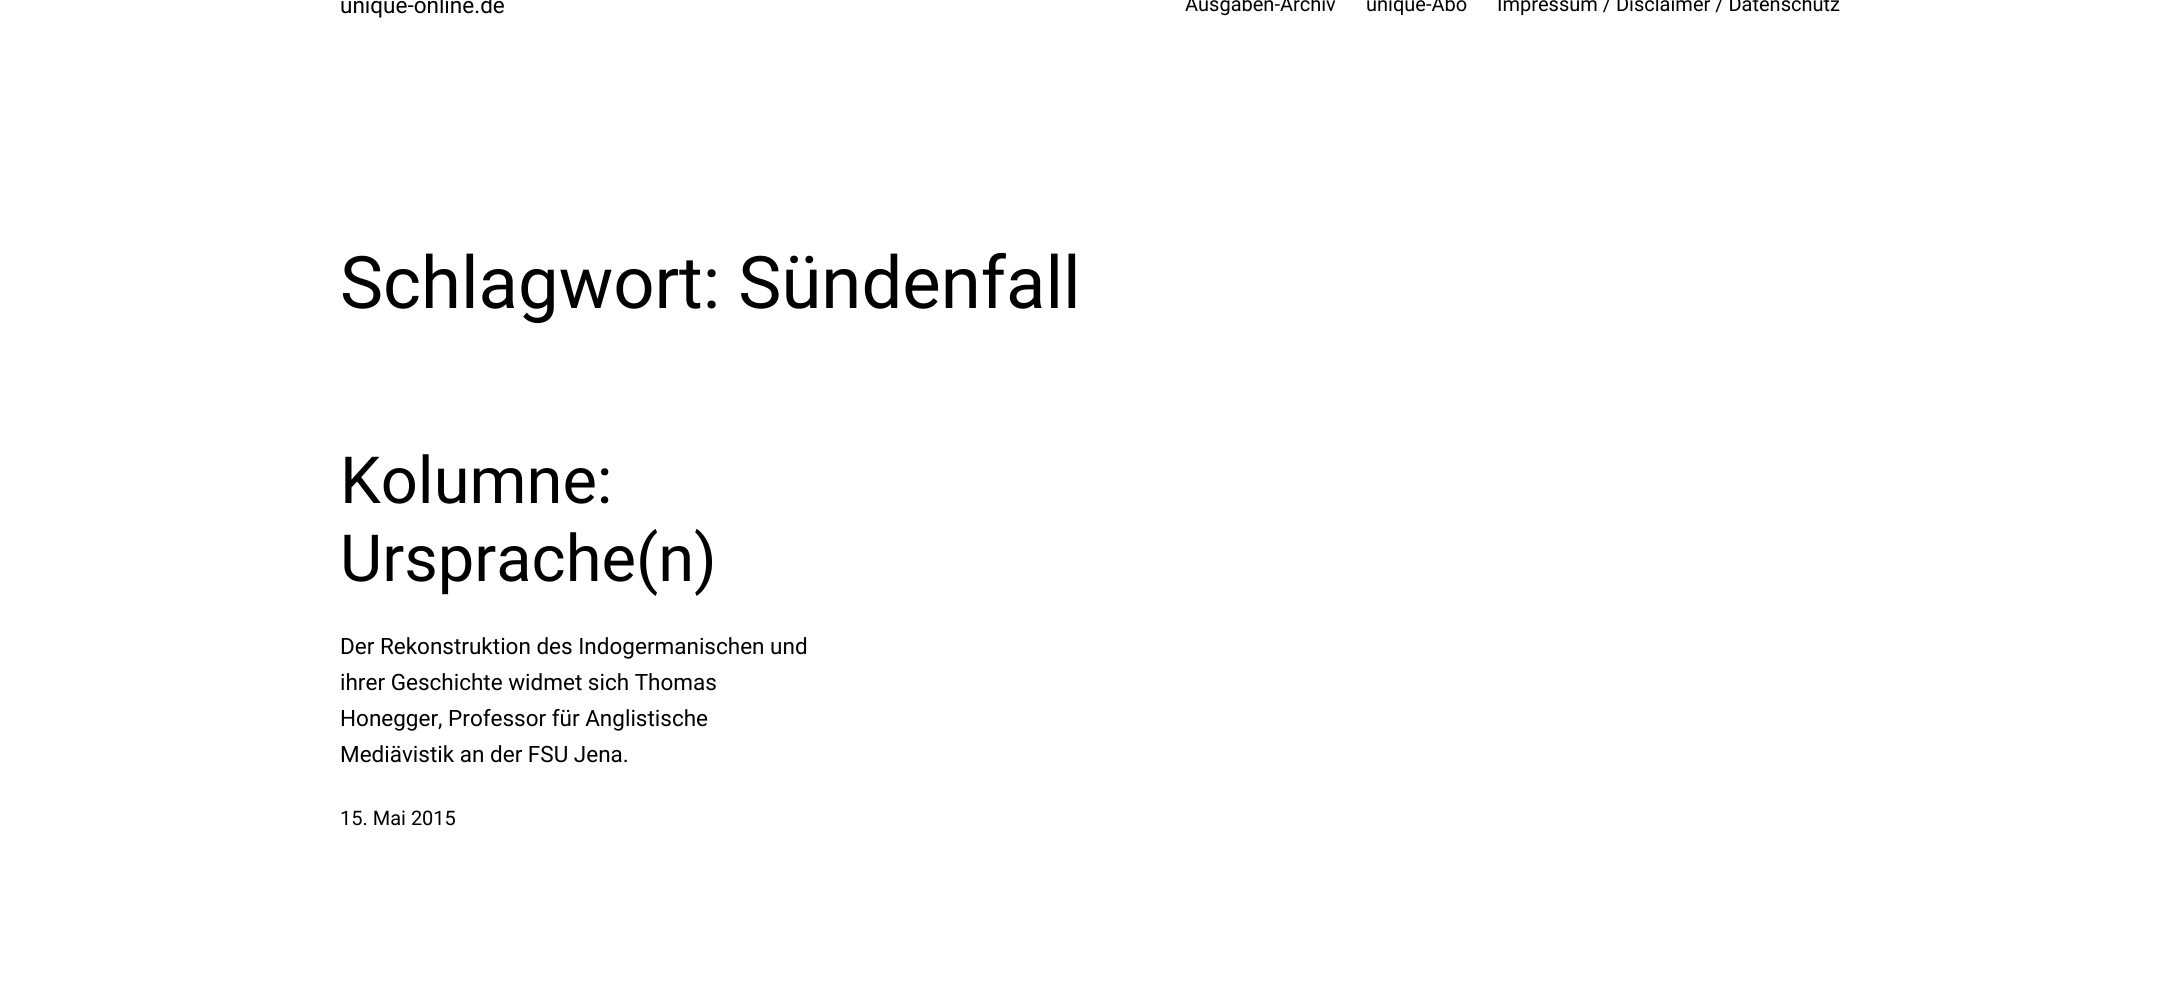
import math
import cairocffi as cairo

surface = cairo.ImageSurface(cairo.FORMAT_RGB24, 2180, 981)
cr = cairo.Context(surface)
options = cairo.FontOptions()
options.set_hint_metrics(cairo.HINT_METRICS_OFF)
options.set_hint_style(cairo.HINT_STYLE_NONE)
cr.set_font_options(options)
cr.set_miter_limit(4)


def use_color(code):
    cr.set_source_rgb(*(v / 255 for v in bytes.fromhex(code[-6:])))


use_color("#ffffff")
cr.paint()
cr.select_font_face("Roboto")
cr.set_font_size(22.5)
use_color("#000000")
cr.move_to(340, 13)
cr.show_text("unique-online.de")
cr.set_font_size(20)
cr.move_to(1185, 11)
cr.show_text("Ausgaben-Archiv")
cr.move_to(1366, 11)
cr.show_text("unique-Abo")
cr.move_to(1497, 11)
cr.show_text("Impressum / Disclaimer / Datenschutz")
cr.set_font_size(72.5)
cr.move_to(340, 308)
cr.show_text("Schlagwort: Sündenfall")
cr.set_font_size(65)
cr.move_to(340, 503)
cr.show_text("Kolumne:")
cr.move_to(340, 581)
cr.show_text("Ursprache(n)")
cr.set_font_size(22.5)
cr.move_to(340, 654)
cr.show_text("Der Rekonstruktion des Indogermanischen und")
cr.move_to(340, 690)
cr.show_text("ihrer Geschichte widmet sich Thomas")
cr.move_to(340, 726)
cr.show_text("Honegger, Professor für Anglistische")
cr.move_to(340, 762)
cr.show_text("Mediävistik an der FSU Jena.")
cr.set_font_size(20)
cr.move_to(340, 825)
cr.show_text("15. Mai 2015")
surface.write_to_png("result.png")
